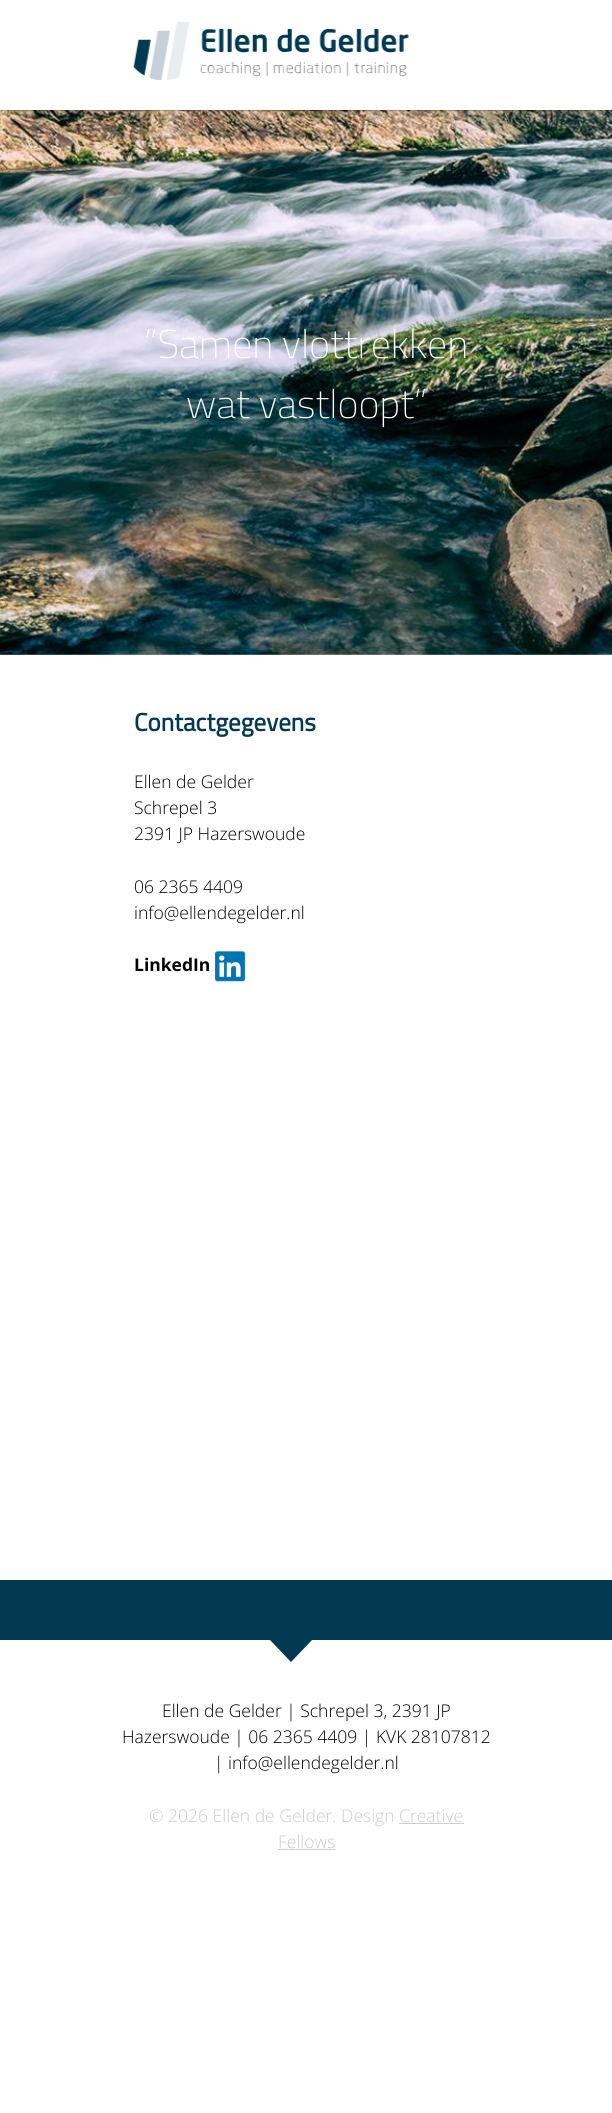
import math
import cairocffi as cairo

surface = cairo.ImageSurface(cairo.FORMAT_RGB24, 612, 2113)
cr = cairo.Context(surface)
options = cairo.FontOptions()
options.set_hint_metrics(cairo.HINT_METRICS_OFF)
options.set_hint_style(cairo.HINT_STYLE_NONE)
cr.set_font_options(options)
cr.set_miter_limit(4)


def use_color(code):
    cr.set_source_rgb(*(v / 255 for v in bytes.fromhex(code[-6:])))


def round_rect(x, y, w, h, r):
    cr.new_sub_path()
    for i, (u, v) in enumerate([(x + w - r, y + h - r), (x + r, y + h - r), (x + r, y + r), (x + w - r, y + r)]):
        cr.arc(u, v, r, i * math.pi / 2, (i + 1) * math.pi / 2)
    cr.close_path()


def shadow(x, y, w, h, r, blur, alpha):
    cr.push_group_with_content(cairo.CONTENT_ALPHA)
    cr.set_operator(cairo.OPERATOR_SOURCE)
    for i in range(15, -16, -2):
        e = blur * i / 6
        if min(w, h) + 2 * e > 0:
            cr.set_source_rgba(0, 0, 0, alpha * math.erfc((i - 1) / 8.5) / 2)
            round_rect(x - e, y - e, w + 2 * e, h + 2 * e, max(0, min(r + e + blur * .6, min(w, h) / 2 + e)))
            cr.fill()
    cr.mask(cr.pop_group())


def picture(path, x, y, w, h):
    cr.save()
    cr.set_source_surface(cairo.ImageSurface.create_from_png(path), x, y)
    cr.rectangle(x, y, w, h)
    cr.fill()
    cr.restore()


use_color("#ffffff")
cr.paint()
picture("img2.png", 0, 110, 612, 545)
use_color("#000000")
shadow(1, 1, 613, 110, 0, 0.5, 0.25)
use_color("#ffffff")
cr.rectangle(0, 0, 612, 110)
cr.fill()
picture("img1.png", 133, 21, 276, 60)
cr.select_font_face("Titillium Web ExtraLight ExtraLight")
cr.set_font_size(40)
cr.move_to(144, 358)
cr.show_text("”Samen vlottrekken")
cr.move_to(186, 418)
cr.show_text("wat vastloopt”")
cr.select_font_face("Titillium Web", cairo.FONT_SLANT_NORMAL, cairo.FONT_WEIGHT_BOLD)
cr.set_font_size(25)
use_color("#033a52")
cr.move_to(134, 731)
cr.show_text("Contactgegevens")
cr.select_font_face("Open Sans Light")
cr.set_font_size(17.5)
use_color("#000000")
cr.move_to(134, 788)
cr.show_text("Ellen de Gelder")
cr.move_to(134, 814)
cr.show_text("Schrepel 3")
cr.move_to(134, 840)
cr.show_text("2391 JP Hazerswoude")
cr.move_to(134, 893)
cr.show_text("06 2365 4409")
cr.move_to(134, 919)
cr.show_text("info@ellendegelder.nl")
cr.select_font_face("Open Sans", cairo.FONT_SLANT_NORMAL, cairo.FONT_WEIGHT_BOLD)
cr.move_to(134, 971)
cr.show_text("LinkedIn")
picture("img3.png", 215, 951, 30, 31)
use_color("#033a52")
cr.rectangle(0, 1580, 612, 60)
cr.fill()
cr.new_path()
cr.move_to(291, 1619)
cr.line_to(312, 1640)
cr.line_to(291, 1662)
cr.line_to(270, 1640)
cr.close_path()
cr.fill()
cr.select_font_face("Open Sans Light")
use_color("#000000")
cr.move_to(162, 1717)
cr.show_text("Ellen de Gelder | Schrepel 3, 2391 JP")
cr.move_to(122, 1743)
cr.show_text("Hazerswoude | 06 2365 4409 | KVK 28107812")
cr.move_to(214, 1769)
cr.show_text("| info@ellendegelder.nl")
use_color("#cccccc")
cr.move_to(149, 1822)
cr.show_text("© 2026 Ellen de Gelder. Design Creative")
cr.move_to(278, 1848)
cr.show_text("Fellows")
cr.rectangle(399, 1823, 65, 1)
cr.fill()
cr.rectangle(278, 1849, 57, 1)
cr.fill()
surface.write_to_png("result.png")
